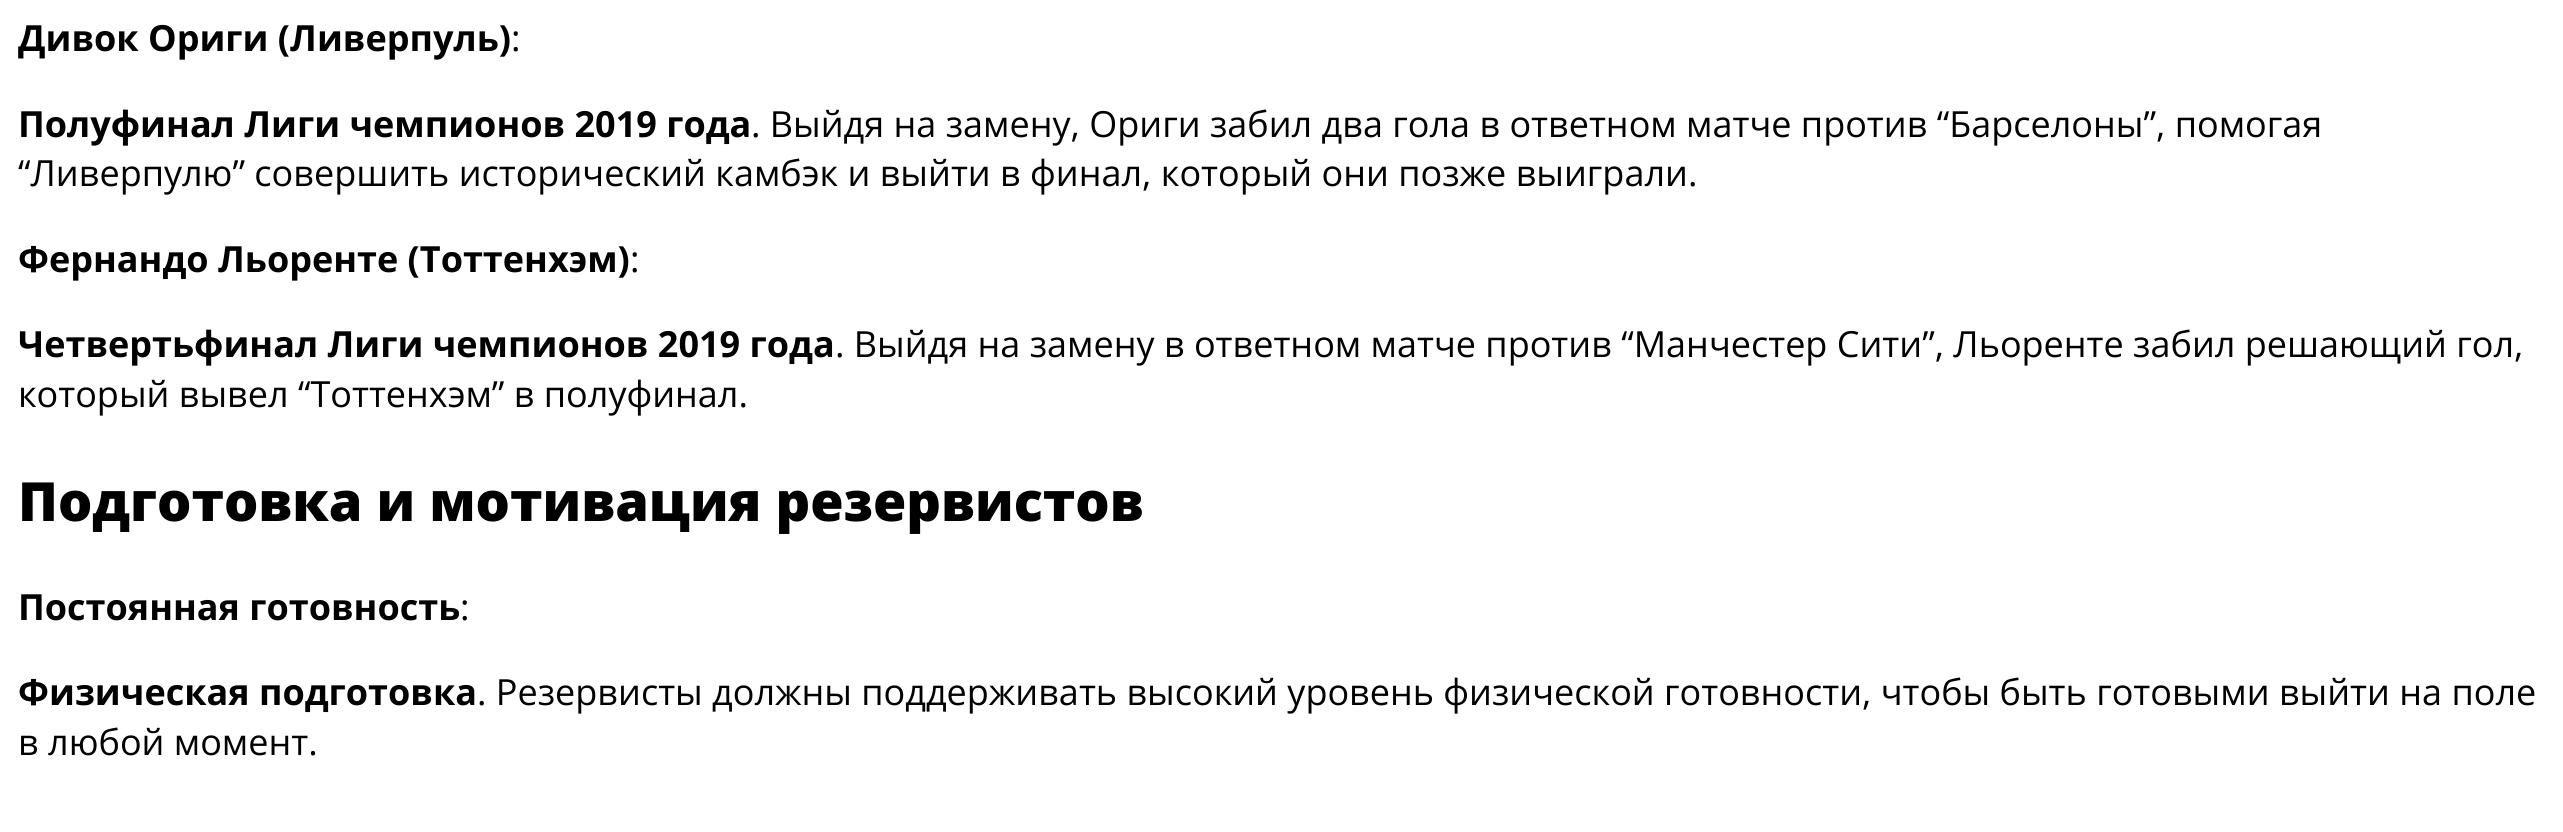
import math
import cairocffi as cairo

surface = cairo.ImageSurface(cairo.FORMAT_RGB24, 2563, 832)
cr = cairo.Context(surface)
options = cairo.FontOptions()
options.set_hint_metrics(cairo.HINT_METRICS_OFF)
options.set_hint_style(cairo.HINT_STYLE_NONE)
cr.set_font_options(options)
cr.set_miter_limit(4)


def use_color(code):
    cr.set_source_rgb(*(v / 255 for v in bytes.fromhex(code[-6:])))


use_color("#ffffff")
cr.paint()
cr.select_font_face("Open Sans", cairo.FONT_SLANT_NORMAL, cairo.FONT_WEIGHT_BOLD)
cr.set_font_size(36)
use_color("#000000")
cr.move_to(18, 51)
cr.show_text("Дивок Ориги (Ливерпуль)")
cr.select_font_face("Open Sans")
cr.move_to(511, 51)
cr.show_text(":")
cr.select_font_face("Open Sans", cairo.FONT_SLANT_NORMAL, cairo.FONT_WEIGHT_BOLD)
cr.move_to(18, 137)
cr.show_text("Полуфинал Лиги чемпионов 2019 года")
cr.select_font_face("Open Sans")
cr.move_to(751, 137)
cr.show_text(". Выйдя на замену, Ориги забил два гола в ответном матче против “Барселоны”, помогая")
cr.move_to(18, 186)
cr.show_text("“Ливерпулю” совершить исторический камбэк и выйти в финал, который они позже выиграли.")
cr.select_font_face("Open Sans", cairo.FONT_SLANT_NORMAL, cairo.FONT_WEIGHT_BOLD)
cr.move_to(18, 272)
cr.show_text("Фернандо Льоренте (Тоттенхэм)")
cr.select_font_face("Open Sans")
cr.move_to(630, 272)
cr.show_text(":")
cr.select_font_face("Open Sans", cairo.FONT_SLANT_NORMAL, cairo.FONT_WEIGHT_BOLD)
cr.move_to(18, 357)
cr.show_text("Четвертьфинал Лиги чемпионов 2019 года")
cr.select_font_face("Open Sans")
cr.move_to(835, 357)
cr.show_text(". Выйдя на замену в ответном матче против “Манчестер Сити”, Льоренте забил решающий гол,")
cr.move_to(18, 407)
cr.show_text("который вывел “Тоттенхэм” в полуфинал.")
cr.select_font_face("Open Sans ExtraBold")
cr.set_font_size(54)
cr.move_to(18, 521)
cr.show_text("Подготовка и мотивация резервистов")
cr.select_font_face("Open Sans", cairo.FONT_SLANT_NORMAL, cairo.FONT_WEIGHT_BOLD)
cr.set_font_size(36)
cr.move_to(18, 620)
cr.show_text("Постоянная готовность")
cr.select_font_face("Open Sans")
cr.move_to(460, 620)
cr.show_text(":")
cr.select_font_face("Open Sans", cairo.FONT_SLANT_NORMAL, cairo.FONT_WEIGHT_BOLD)
cr.move_to(18, 705)
cr.show_text("Физическая подготовка")
cr.select_font_face("Open Sans")
cr.move_to(477, 705)
cr.show_text(". Резервисты должны поддерживать высокий уровень физической готовности, чтобы быть готовыми выйти на поле")
cr.move_to(18, 755)
cr.show_text("в любой момент.")
surface.write_to_png("result.png")
